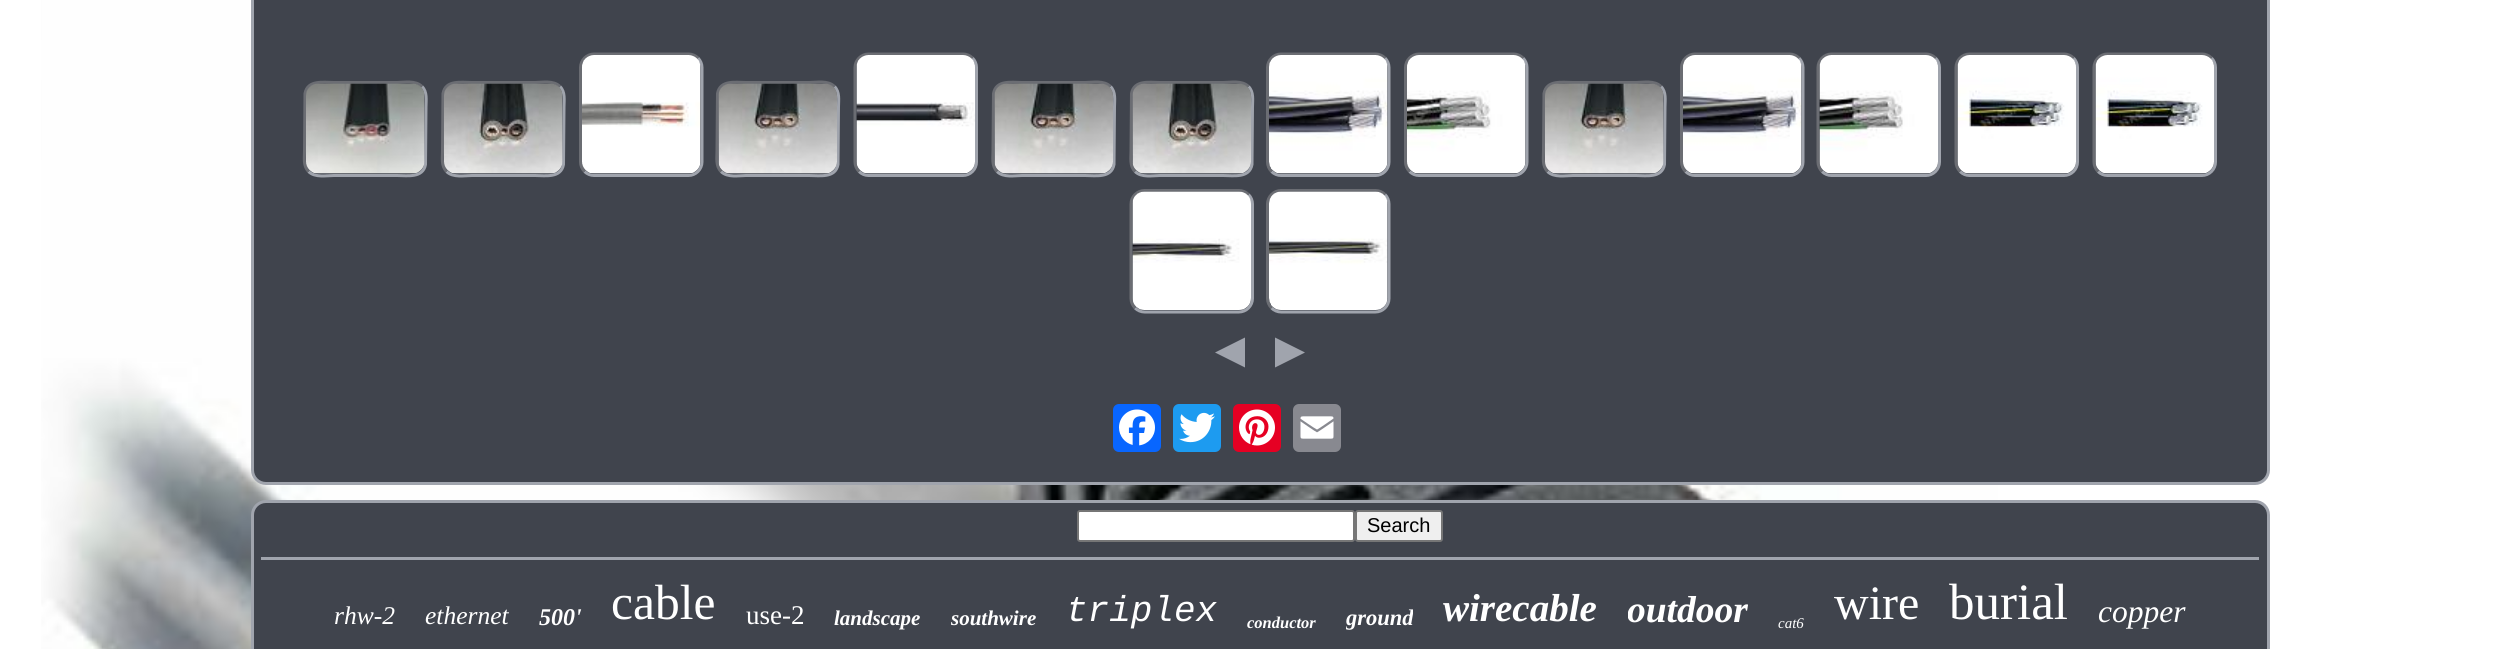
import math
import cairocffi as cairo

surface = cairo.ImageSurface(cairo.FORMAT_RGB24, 2498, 649)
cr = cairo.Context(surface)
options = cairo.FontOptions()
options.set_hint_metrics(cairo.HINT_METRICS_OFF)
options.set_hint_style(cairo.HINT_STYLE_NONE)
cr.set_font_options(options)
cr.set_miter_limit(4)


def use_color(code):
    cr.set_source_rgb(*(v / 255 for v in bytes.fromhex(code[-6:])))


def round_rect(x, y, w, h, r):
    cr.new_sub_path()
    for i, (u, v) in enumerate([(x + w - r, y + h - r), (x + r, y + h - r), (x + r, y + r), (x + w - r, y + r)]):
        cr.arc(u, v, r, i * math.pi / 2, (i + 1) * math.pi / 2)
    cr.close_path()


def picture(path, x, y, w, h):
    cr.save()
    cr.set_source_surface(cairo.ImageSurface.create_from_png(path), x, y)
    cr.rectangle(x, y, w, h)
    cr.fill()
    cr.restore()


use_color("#ffffff")
cr.paint()
picture("img1.png", 41, 0, 1957, 649)
use_color("#40444d")
round_rect(252.5, -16.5, 2016, 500, 13.5)
cr.fill_preserve()
use_color("#a0a4ad")
cr.set_line_width(3)
cr.stroke()
cr.new_path()
cr.move_to(422, 86.5)
cr.curve_to(427.5, 92, 426, 100, 426, 107)
cr.line_to(425.5, 164.5)
cr.curve_to(423, 178.5, 407, 175.5, 397, 175.5)
cr.line_to(334, 175.5)
cr.curve_to(326.5, 175.5, 315, 178, 308.5, 171.5)
cr.stroke()
cr.new_path()
cr.move_to(308.5, 171.5)
cr.curve_to(303, 166, 304.5, 158, 304.5, 151)
cr.line_to(305, 93.5)
cr.curve_to(307.5, 79.5, 323.5, 82.5, 334, 82.5)
cr.line_to(397, 82.5)
cr.curve_to(404, 82.5, 415.5, 80, 422, 86.5)
use_color("#6b6d73")
cr.stroke()
picture("img2.png", 306, 83, 119, 91)
cr.new_path()
cr.move_to(560, 86.5)
cr.curve_to(565.5, 92, 564, 100, 564, 107)
cr.line_to(563.5, 164.5)
cr.curve_to(561, 178.5, 545, 175.5, 535, 175.5)
cr.line_to(472, 175.5)
cr.curve_to(464.5, 175.5, 453, 178, 446.5, 171.5)
use_color("#a0a4ad")
cr.stroke()
cr.new_path()
cr.move_to(446.5, 171.5)
cr.curve_to(441, 166, 442.5, 158, 442.5, 151)
cr.line_to(443, 93.5)
cr.curve_to(445.5, 79.5, 461.5, 82.5, 472, 82.5)
cr.line_to(535, 82.5)
cr.curve_to(542, 82.5, 553.5, 80, 560, 86.5)
use_color("#6b6d73")
cr.stroke()
picture("img3.png", 444, 83, 119, 91)
cr.new_path()
cr.move_to(698, 58)
cr.curve_to(700.5, 60.5, 702, 64, 702, 67.5)
cr.line_to(702, 162)
cr.curve_to(702, 165.5, 700.5, 169, 698, 171.5)
cr.curve_to(695.5, 174, 692, 175.5, 688.5, 175.5)
cr.line_to(594, 175.5)
cr.curve_to(590.5, 175.5, 587, 174, 584.5, 171.5)
use_color("#a0a4ad")
cr.stroke()
cr.new_path()
cr.move_to(584.5, 171.5)
cr.curve_to(582, 169, 580.5, 165.5, 580.5, 162)
cr.line_to(580.5, 67.5)
cr.curve_to(580.5, 64, 582, 60.5, 584.5, 58)
cr.curve_to(587, 55.5, 590.5, 54, 594, 54)
cr.line_to(688.5, 54)
cr.curve_to(692, 54, 695.5, 55.5, 698, 58)
use_color("#6b6d73")
cr.stroke()
picture("img4.png", 582, 55, 119, 119)
cr.new_path()
cr.move_to(834.5, 86.5)
cr.curve_to(840, 92, 838.5, 100, 838.5, 107)
cr.line_to(838, 164.5)
cr.curve_to(835.5, 178.5, 819.5, 175.5, 809, 175.5)
cr.line_to(746, 175.5)
cr.curve_to(739, 175.5, 727.5, 178, 721, 171.5)
use_color("#a0a4ad")
cr.stroke()
cr.new_path()
cr.move_to(721, 171.5)
cr.curve_to(715.5, 166, 717, 158, 717, 151)
cr.line_to(717.5, 93.5)
cr.curve_to(720, 79.5, 736, 82.5, 746, 82.5)
cr.line_to(809, 82.5)
cr.curve_to(816.5, 82.5, 828, 80, 834.5, 86.5)
use_color("#6b6d73")
cr.stroke()
picture("img5.png", 718, 83, 119, 91)
cr.new_path()
cr.move_to(972.5, 58)
cr.curve_to(975, 60.5, 976.5, 64, 976.5, 67.5)
cr.line_to(976.5, 162)
cr.curve_to(976.5, 165.5, 975, 169, 972.5, 171.5)
cr.curve_to(970, 174, 966.5, 175.5, 963, 175.5)
cr.line_to(868.5, 175.5)
cr.curve_to(865, 175.5, 861.5, 174, 859, 171.5)
use_color("#a0a4ad")
cr.stroke()
cr.new_path()
cr.move_to(859, 171.5)
cr.curve_to(856.5, 169, 855, 165.5, 855, 162)
cr.line_to(855, 67.5)
cr.curve_to(855, 64, 856.5, 60.5, 859, 58)
cr.curve_to(861.5, 55.5, 865, 54, 868.5, 54)
cr.line_to(963, 54)
cr.curve_to(966.5, 54, 970, 55.5, 972.5, 58)
use_color("#6b6d73")
cr.stroke()
picture("img6.png", 856, 55, 119, 119)
cr.new_path()
cr.move_to(1110.5, 86.5)
cr.curve_to(1116, 92, 1114.5, 100, 1114.5, 107)
cr.line_to(1114, 164.5)
cr.curve_to(1111.5, 178.5, 1095.5, 175.5, 1085, 175.5)
cr.line_to(1022, 175.5)
cr.curve_to(1015, 175.5, 1003.5, 178, 997, 171.5)
use_color("#a0a4ad")
cr.stroke()
cr.new_path()
cr.move_to(997, 171.5)
cr.curve_to(991.5, 166, 993, 158, 993, 151)
cr.line_to(993.5, 93.5)
cr.curve_to(996, 79.5, 1012, 82.5, 1022, 82.5)
cr.line_to(1085, 82.5)
cr.curve_to(1092.5, 82.5, 1104, 80, 1110.5, 86.5)
use_color("#6b6d73")
cr.stroke()
picture("img5.png", 994, 83, 119, 91)
cr.new_path()
cr.move_to(1248.5, 86.5)
cr.curve_to(1254, 92, 1252.5, 100, 1252.5, 107)
cr.line_to(1252, 164.5)
cr.curve_to(1249.5, 178.5, 1233.5, 175.5, 1223, 175.5)
cr.line_to(1160, 175.5)
cr.curve_to(1153, 175.5, 1141.5, 178, 1135, 171.5)
use_color("#a0a4ad")
cr.stroke()
cr.new_path()
cr.move_to(1135, 171.5)
cr.curve_to(1129.5, 166, 1131, 158, 1131, 151)
cr.line_to(1131.5, 93.5)
cr.curve_to(1134, 79.5, 1150, 82.5, 1160, 82.5)
cr.line_to(1223, 82.5)
cr.curve_to(1230.5, 82.5, 1242, 80, 1248.5, 86.5)
use_color("#6b6d73")
cr.stroke()
picture("img7.png", 1132, 83, 119, 91)
cr.new_path()
cr.move_to(1385, 58)
cr.curve_to(1387.5, 60.5, 1389, 64, 1389, 67.5)
cr.line_to(1389, 162)
cr.curve_to(1389, 165.5, 1387.5, 169, 1385, 171.5)
cr.curve_to(1382.5, 174, 1379, 175.5, 1375.5, 175.5)
cr.line_to(1281, 175.5)
cr.curve_to(1277.5, 175.5, 1274, 174, 1271.5, 171.5)
use_color("#a0a4ad")
cr.stroke()
cr.new_path()
cr.move_to(1271.5, 171.5)
cr.curve_to(1269, 169, 1267.5, 165.5, 1267.5, 162)
cr.line_to(1267.5, 67.5)
cr.curve_to(1267.5, 64, 1269, 60.5, 1271.5, 58)
cr.curve_to(1274, 55.5, 1277.5, 54, 1281, 54)
cr.line_to(1375.5, 54)
cr.curve_to(1379, 54, 1382.5, 55.5, 1385, 58)
use_color("#6b6d73")
cr.stroke()
picture("img8.png", 1269, 55, 119, 119)
cr.new_path()
cr.move_to(1523, 58)
cr.curve_to(1525.5, 60.5, 1527, 64, 1527, 67.5)
cr.line_to(1527, 162)
cr.curve_to(1527, 165.5, 1525.5, 169, 1523, 171.5)
cr.curve_to(1520.5, 174, 1517, 175.5, 1513.5, 175.5)
cr.line_to(1419, 175.5)
cr.curve_to(1415.5, 175.5, 1412, 174, 1409.5, 171.5)
use_color("#a0a4ad")
cr.stroke()
cr.new_path()
cr.move_to(1409.5, 171.5)
cr.curve_to(1407, 169, 1405.5, 165.5, 1405.5, 162)
cr.line_to(1405.5, 67.5)
cr.curve_to(1405.5, 64, 1407, 60.5, 1409.5, 58)
cr.curve_to(1412, 55.5, 1415.5, 54, 1419, 54)
cr.line_to(1513.5, 54)
cr.curve_to(1517, 54, 1520.5, 55.5, 1523, 58)
use_color("#6b6d73")
cr.stroke()
picture("img9.png", 1407, 55, 119, 119)
cr.new_path()
cr.move_to(1661, 86.5)
cr.curve_to(1666.5, 92, 1665, 100, 1665, 107)
cr.line_to(1664.5, 164.5)
cr.curve_to(1662, 178.5, 1646, 175.5, 1636, 175.5)
cr.line_to(1573, 175.5)
cr.curve_to(1565.5, 175.5, 1554, 178, 1547.5, 171.5)
use_color("#a0a4ad")
cr.stroke()
cr.new_path()
cr.move_to(1547.5, 171.5)
cr.curve_to(1542, 166, 1543.5, 158, 1543.5, 151)
cr.line_to(1544, 93.5)
cr.curve_to(1546.5, 79.5, 1562.5, 82.5, 1573, 82.5)
cr.line_to(1636, 82.5)
cr.curve_to(1643, 82.5, 1654.5, 80, 1661, 86.5)
use_color("#6b6d73")
cr.stroke()
picture("img10.png", 1545, 83, 119, 91)
cr.new_path()
cr.move_to(1799, 58)
cr.curve_to(1801.5, 60.5, 1803, 64, 1803, 67.5)
cr.line_to(1803, 162)
cr.curve_to(1803, 165.5, 1801.5, 169, 1799, 171.5)
cr.curve_to(1796.5, 174, 1793, 175.5, 1789.5, 175.5)
cr.line_to(1695, 175.5)
cr.curve_to(1691.5, 175.5, 1688, 174, 1685.5, 171.5)
use_color("#a0a4ad")
cr.stroke()
cr.new_path()
cr.move_to(1685.5, 171.5)
cr.curve_to(1683, 169, 1681.5, 165.5, 1681.5, 162)
cr.line_to(1681.5, 67.5)
cr.curve_to(1681.5, 64, 1683, 60.5, 1685.5, 58)
cr.curve_to(1688, 55.5, 1691.5, 54, 1695, 54)
cr.line_to(1789.5, 54)
cr.curve_to(1793, 54, 1796.5, 55.5, 1799, 58)
use_color("#6b6d73")
cr.stroke()
picture("img11.png", 1683, 55, 119, 119)
cr.new_path()
cr.move_to(1935.5, 58)
cr.curve_to(1938, 60.5, 1939.5, 64, 1939.5, 67.5)
cr.line_to(1939.5, 162)
cr.curve_to(1939.5, 165.5, 1938, 169, 1935.5, 171.5)
cr.curve_to(1933, 174, 1929.5, 175.5, 1926, 175.5)
cr.line_to(1831.5, 175.5)
cr.curve_to(1828, 175.5, 1824.5, 174, 1822, 171.5)
use_color("#a0a4ad")
cr.stroke()
cr.new_path()
cr.move_to(1822, 171.5)
cr.curve_to(1819.5, 169, 1818, 165.5, 1818, 162)
cr.line_to(1818, 67.5)
cr.curve_to(1818, 64, 1819.5, 60.5, 1822, 58)
cr.curve_to(1824.5, 55.5, 1828, 54, 1831.5, 54)
cr.line_to(1926, 54)
cr.curve_to(1929.5, 54, 1933, 55.5, 1935.5, 58)
use_color("#6b6d73")
cr.stroke()
picture("img12.png", 1819, 55, 119, 119)
cr.new_path()
cr.move_to(2073.5, 58)
cr.curve_to(2076, 60.5, 2077.5, 64, 2077.5, 67.5)
cr.line_to(2077.5, 162)
cr.curve_to(2077.5, 165.5, 2076, 169, 2073.5, 171.5)
cr.curve_to(2071, 174, 2067.5, 175.5, 2064, 175.5)
cr.line_to(1969.5, 175.5)
cr.curve_to(1966, 175.5, 1962.5, 174, 1960, 171.5)
use_color("#a0a4ad")
cr.stroke()
cr.new_path()
cr.move_to(1960, 171.5)
cr.curve_to(1957.5, 169, 1956, 165.5, 1956, 162)
cr.line_to(1956, 67.5)
cr.curve_to(1956, 64, 1957.5, 60.5, 1960, 58)
cr.curve_to(1962.5, 55.5, 1966, 54, 1969.5, 54)
cr.line_to(2064, 54)
cr.curve_to(2067.5, 54, 2071, 55.5, 2073.5, 58)
use_color("#6b6d73")
cr.stroke()
picture("img13.png", 1957, 55, 119, 119)
cr.new_path()
cr.move_to(2211.5, 58)
cr.curve_to(2214, 60.5, 2215.5, 64, 2215.5, 67.5)
cr.line_to(2215.5, 162)
cr.curve_to(2215.5, 165.5, 2214, 169, 2211.5, 171.5)
cr.curve_to(2209, 174, 2205.5, 175.5, 2202, 175.5)
cr.line_to(2107.5, 175.5)
cr.curve_to(2104, 175.5, 2100.5, 174, 2098, 171.5)
use_color("#a0a4ad")
cr.stroke()
cr.new_path()
cr.move_to(2098, 171.5)
cr.curve_to(2095.5, 169, 2094, 165.5, 2094, 162)
cr.line_to(2094, 67.5)
cr.curve_to(2094, 64, 2095.5, 60.5, 2098, 58)
cr.curve_to(2100.5, 55.5, 2104, 54, 2107.5, 54)
cr.line_to(2202, 54)
cr.curve_to(2205.5, 54, 2209, 55.5, 2211.5, 58)
use_color("#6b6d73")
cr.stroke()
picture("img14.png", 2095, 55, 119, 119)
cr.new_path()
cr.move_to(1248.5, 194.5)
cr.curve_to(1251, 197, 1252.5, 200.5, 1252.5, 204)
cr.line_to(1252.5, 298.5)
cr.curve_to(1252.5, 302, 1251, 305.5, 1248.5, 308)
cr.curve_to(1246, 310.5, 1242.5, 312, 1239, 312)
cr.line_to(1144.5, 312)
cr.curve_to(1141, 312, 1137.5, 310.5, 1135, 308)
use_color("#a0a4ad")
cr.stroke()
cr.new_path()
cr.move_to(1135, 308)
cr.curve_to(1132.5, 305.5, 1131, 302, 1131, 298.5)
cr.line_to(1131, 204)
cr.curve_to(1131, 200.5, 1132.5, 197, 1135, 194.5)
cr.curve_to(1137.5, 192, 1141, 190.5, 1144.5, 190.5)
cr.line_to(1239, 190.5)
cr.curve_to(1242.5, 190.5, 1246, 192, 1248.5, 194.5)
use_color("#6b6d73")
cr.stroke()
picture("img15.png", 1132, 191, 119, 119)
cr.new_path()
cr.move_to(1385, 194.5)
cr.curve_to(1387.5, 197, 1389, 200.5, 1389, 204)
cr.line_to(1389, 298.5)
cr.curve_to(1389, 302, 1387.5, 305.5, 1385, 308)
cr.curve_to(1382.5, 310.5, 1379, 312, 1375.5, 312)
cr.line_to(1281, 312)
cr.curve_to(1277.5, 312, 1274, 310.5, 1271.5, 308)
use_color("#a0a4ad")
cr.stroke()
cr.new_path()
cr.move_to(1271.5, 308)
cr.curve_to(1269, 305.5, 1267.5, 302, 1267.5, 298.5)
cr.line_to(1267.5, 204)
cr.curve_to(1267.5, 200.5, 1269, 197, 1271.5, 194.5)
cr.curve_to(1274, 192, 1277.5, 190.5, 1281, 190.5)
cr.line_to(1375.5, 190.5)
cr.curve_to(1379, 190.5, 1382.5, 192, 1385, 194.5)
use_color("#6b6d73")
cr.stroke()
picture("img16.png", 1269, 191, 119, 119)
use_color("#a0a4ad")
cr.new_path()
cr.move_to(1245, 337.5)
cr.line_to(1245, 367.5)
cr.line_to(1215, 352.5)
cr.close_path()
cr.fill()
cr.new_path()
cr.move_to(1275, 367.5)
cr.line_to(1275, 337.5)
cr.line_to(1305, 352.5)
cr.close_path()
cr.fill()
use_color("#0866ff")
round_rect(1113, 404, 48, 48, 6)
cr.fill()
picture("img17.png", 1119, 409, 36, 37)
use_color("#1d9bf0")
round_rect(1173, 404, 48, 48, 6)
cr.fill()
picture("img18.png", 1179, 412, 36, 31)
use_color("#e60023")
round_rect(1233, 404, 48, 48, 6)
cr.fill()
picture("img19.png", 1239, 409, 36, 37)
use_color("#888990")
round_rect(1293, 404, 48, 48, 6)
cr.fill()
picture("img20.png", 1300, 416, 34, 23)
use_color("#40444d")
round_rect(252.5, 501.5, 2016, 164, 13.5)
cr.fill_preserve()
use_color("#a0a4ad")
cr.stroke()
use_color("#ffffff")
round_rect(1078, 511, 276, 30, 2)
cr.fill_preserve()
use_color("#767676")
cr.set_line_width(2)
cr.stroke()
use_color("#efefef")
round_rect(1356, 511, 86, 30, 2)
cr.fill_preserve()
use_color("#767676")
cr.stroke()
cr.select_font_face("Liberation Sans")
cr.set_font_size(20)
use_color("#000000")
cr.move_to(1367, 532)
cr.show_text("Search")
use_color("#a0a4ad")
cr.rectangle(261, 557, 1998, 3)
cr.fill()
cr.select_font_face("Liberation Serif", cairo.FONT_SLANT_ITALIC)
cr.set_font_size(25.5)
use_color("#ffffff")
cr.move_to(334, 624)
cr.show_text("rhw-2")
cr.move_to(425, 624)
cr.show_text("ethernet")
cr.select_font_face("Liberation Serif", cairo.FONT_SLANT_ITALIC, cairo.FONT_WEIGHT_BOLD)
cr.set_font_size(24)
cr.move_to(539, 625)
cr.show_text("500'")
cr.select_font_face("Liberation Serif")
cr.set_font_size(49.5)
cr.move_to(611, 619)
cr.show_text("cable")
cr.set_font_size(27)
cr.move_to(746, 624)
cr.show_text("use-2")
cr.select_font_face("Liberation Serif", cairo.FONT_SLANT_ITALIC, cairo.FONT_WEIGHT_BOLD)
cr.set_font_size(21)
cr.move_to(834, 625)
cr.show_text("landscape")
cr.save()
cr.rectangle(951, 608, 86, 24)
cr.clip()
cr.move_to(951, 625)
cr.show_text("southwire")
cr.restore()
cr.select_font_face("Liberation Mono", cairo.FONT_SLANT_ITALIC)
cr.set_font_size(36)
cr.move_to(1066, 621)
cr.show_text("triplex")
cr.select_font_face("Liberation Serif", cairo.FONT_SLANT_ITALIC, cairo.FONT_WEIGHT_BOLD)
cr.set_font_size(16.5)
cr.move_to(1247, 628)
cr.show_text("conductor")
cr.save()
cr.rectangle(1346, 606, 67, 26)
cr.clip()
cr.set_font_size(22.5)
cr.move_to(1346, 625)
cr.show_text("ground")
cr.restore()
cr.set_font_size(39)
cr.move_to(1443, 621)
cr.show_text("wirecable")
cr.save()
cr.rectangle(1628, 590, 120, 42)
cr.clip()
cr.set_font_size(37.5)
cr.move_to(1627, 622)
cr.show_text("outdoor")
cr.restore()
cr.select_font_face("Liberation Serif", cairo.FONT_SLANT_ITALIC)
cr.set_font_size(15)
cr.move_to(1778, 628)
cr.show_text("cat6")
cr.select_font_face("Liberation Serif")
cr.set_font_size(48)
cr.move_to(1834, 619)
cr.show_text("wire")
cr.set_font_size(51)
cr.move_to(1949, 619)
cr.show_text("burial")
cr.select_font_face("Liberation Serif", cairo.FONT_SLANT_ITALIC)
cr.set_font_size(31.5)
cr.move_to(2098, 622)
cr.show_text("copper")
surface.write_to_png("result.png")
